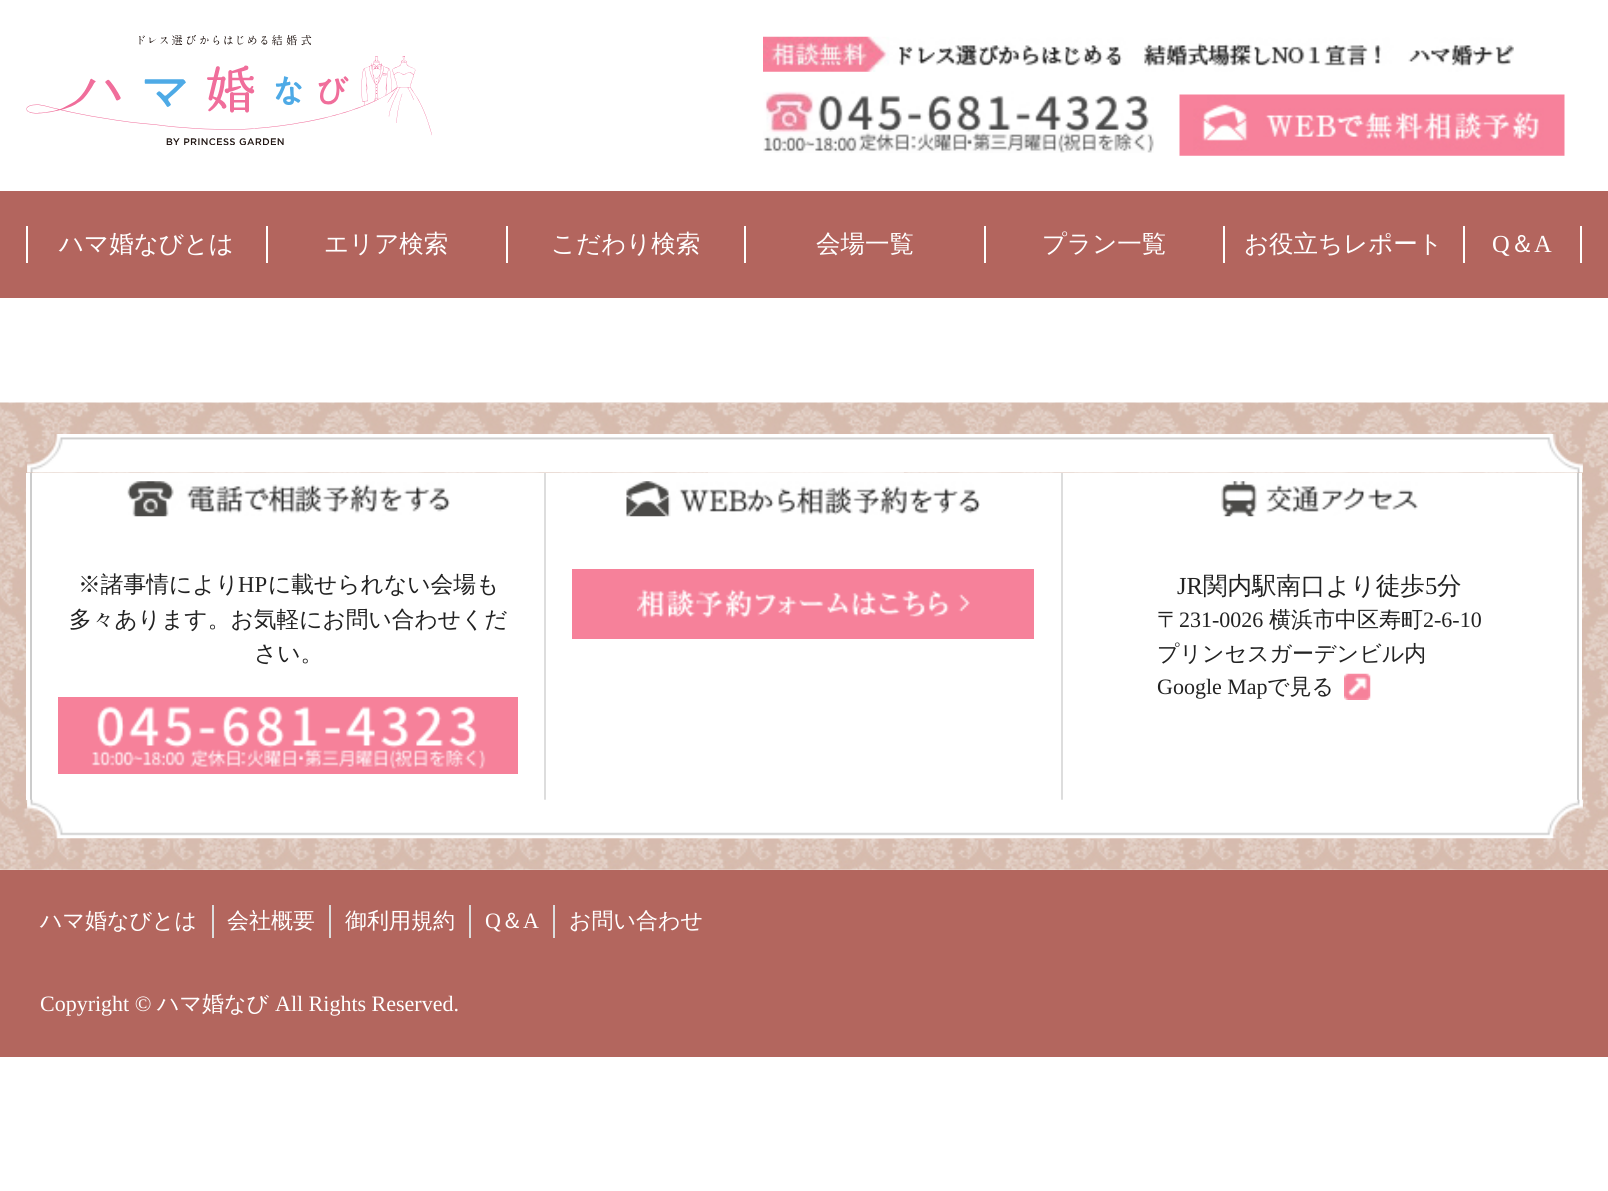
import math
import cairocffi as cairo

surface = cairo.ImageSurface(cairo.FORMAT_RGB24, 1608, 1191)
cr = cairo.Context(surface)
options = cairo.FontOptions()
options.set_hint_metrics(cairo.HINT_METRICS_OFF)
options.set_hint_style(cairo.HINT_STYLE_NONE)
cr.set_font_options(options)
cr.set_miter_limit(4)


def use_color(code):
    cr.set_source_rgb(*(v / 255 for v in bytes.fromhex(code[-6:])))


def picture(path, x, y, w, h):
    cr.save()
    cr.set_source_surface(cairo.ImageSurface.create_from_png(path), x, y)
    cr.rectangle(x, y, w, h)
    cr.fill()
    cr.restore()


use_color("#ffffff")
cr.paint()
picture("img1.png", 26, 35, 406, 110)
picture("img2.png", 763, 36, 751, 36)
picture("img3.png", 763, 91, 391, 62)
picture("img4.png", 1179, 94, 386, 62)
use_color("#b3655e")
cr.rectangle(0, 191, 1608, 107)
cr.fill()
use_color("#ffffff")
cr.rectangle(26, 226, 2, 37)
cr.fill()
cr.select_font_face("WenQuanYi Zen Hei Medium")
cr.set_font_size(24.5)
cr.move_to(59, 252)
cr.show_text("ハマ婚なびとは")
cr.rectangle(266, 226, 2, 37)
cr.fill()
cr.move_to(324, 252)
cr.show_text("エリア検索")
cr.rectangle(506, 226, 2, 37)
cr.fill()
cr.move_to(551, 252)
cr.show_text("こだわり検索")
cr.rectangle(744, 226, 2, 37)
cr.fill()
cr.move_to(816, 252)
cr.show_text("会場一覧")
cr.rectangle(984, 226, 2, 37)
cr.fill()
cr.move_to(1042, 252)
cr.show_text("プラン一覧")
cr.rectangle(1223, 226, 2, 37)
cr.fill()
cr.move_to(1244, 252)
cr.show_text("お役立ちレポート")
cr.rectangle(1580, 226, 2, 37)
cr.fill()
cr.rectangle(1463, 226, 2, 37)
cr.fill()
cr.select_font_face("Liberation Serif")
cr.move_to(1492, 252)
cr.show_text("Q")
cr.select_font_face("WenQuanYi Zen Hei Medium")
cr.move_to(1510, 252)
cr.show_text("＆")
cr.select_font_face("Liberation Serif")
cr.move_to(1534, 252)
cr.show_text("A")
picture("img5.png", 0, 402, 1608, 468)
cr.rectangle(26, 473, 1556, 327)
cr.fill()
picture("img6.png", 27, 434, 1556, 39)
use_color("#cccccc")
cr.rectangle(1577, 473, 2, 327)
cr.fill()
cr.rectangle(30, 473, 2, 327)
cr.fill()
use_color("#dddddd")
cr.rectangle(544, 473, 2, 327)
cr.fill()
picture("img7.png", 127, 481, 323, 36)
cr.select_font_face("WenQuanYi Zen Hei Medium")
cr.set_font_size(22.75)
use_color("#222222")
cr.move_to(78, 592)
cr.show_text("※諸事情により")
cr.select_font_face("Liberation Serif")
cr.move_to(238, 592)
cr.show_text("HP")
cr.select_font_face("WenQuanYi Zen Hei Medium")
cr.move_to(268, 592)
cr.show_text("に載せられない会場も")
cr.move_to(69, 627)
cr.show_text("多々あります。お気軽にお問い合わせくだ")
cr.move_to(254, 661)
cr.show_text("さい。")
use_color("#f6819a")
cr.rectangle(58, 697, 460, 77)
cr.fill()
picture("img8.png", 91, 706, 395, 63)
use_color("#dddddd")
cr.rectangle(1061, 473, 2, 327)
cr.fill()
picture("img9.png", 626, 481, 354, 36)
use_color("#f6819a")
cr.rectangle(572, 569, 462, 70)
cr.fill()
picture("img10.png", 637, 589, 333, 29)
picture("img11.png", 1221, 481, 197, 36)
cr.select_font_face("Liberation Serif")
cr.set_font_size(24.5)
use_color("#222222")
cr.move_to(1177, 594)
cr.show_text("JR")
cr.select_font_face("WenQuanYi Zen Hei Medium")
cr.move_to(1203, 594)
cr.show_text("関内駅南口より徒歩")
cr.select_font_face("Liberation Serif")
cr.move_to(1425, 594)
cr.show_text("5")
cr.select_font_face("WenQuanYi Zen Hei Medium")
cr.move_to(1437, 594)
cr.show_text("分")
cr.set_font_size(22)
cr.move_to(1157, 627)
cr.show_text("〒")
cr.select_font_face("Liberation Serif")
cr.move_to(1179, 627)
cr.show_text("231-0026")
cr.select_font_face("WenQuanYi Zen Hei Medium")
cr.move_to(1269, 627)
cr.show_text("横浜市中区寿町")
cr.select_font_face("Liberation Serif")
cr.move_to(1423, 627)
cr.show_text("2-6-10")
cr.select_font_face("WenQuanYi Zen Hei Medium")
cr.move_to(1157, 661)
cr.show_text("プリンセスガーデンビル内")
picture("img12.png", 1344, 673, 27, 27)
cr.select_font_face("Liberation Serif")
cr.move_to(1157, 694)
cr.show_text("Google Map")
cr.select_font_face("WenQuanYi Zen Hei Medium")
cr.move_to(1267, 694)
cr.show_text("で見る")
picture("img13.png", 27, 799, 1556, 40)
use_color("#b3665e")
cr.rectangle(0, 870, 1608, 187)
cr.fill()
use_color("#dddddd")
cr.rectangle(212, 905, 2, 33)
cr.fill()
use_color("#ffffff")
cr.move_to(40, 928)
cr.show_text("ハマ婚なびとは")
use_color("#dddddd")
cr.rectangle(329, 905, 2, 33)
cr.fill()
use_color("#ffffff")
cr.move_to(227, 928)
cr.show_text("会社概要")
use_color("#dddddd")
cr.rectangle(469, 905, 2, 33)
cr.fill()
use_color("#ffffff")
cr.move_to(345, 928)
cr.show_text("御利用規約")
use_color("#dddddd")
cr.rectangle(553, 905, 2, 33)
cr.fill()
cr.select_font_face("Liberation Serif")
use_color("#ffffff")
cr.move_to(485, 928)
cr.show_text("Q")
cr.select_font_face("WenQuanYi Zen Hei Medium")
cr.move_to(501, 928)
cr.show_text("＆")
cr.select_font_face("Liberation Serif")
cr.move_to(523, 928)
cr.show_text("A")
cr.select_font_face("WenQuanYi Zen Hei Medium")
cr.move_to(569, 928)
cr.show_text("お問い合わせ")
cr.select_font_face("Liberation Serif")
cr.move_to(40, 1011)
cr.show_text("Copyright ©")
cr.select_font_face("WenQuanYi Zen Hei Medium")
cr.move_to(157, 1011)
cr.show_text("ハマ婚なび")
cr.select_font_face("Liberation Serif")
cr.move_to(275, 1011)
cr.show_text("All Rights Reserved.")
surface.write_to_png("result.png")
